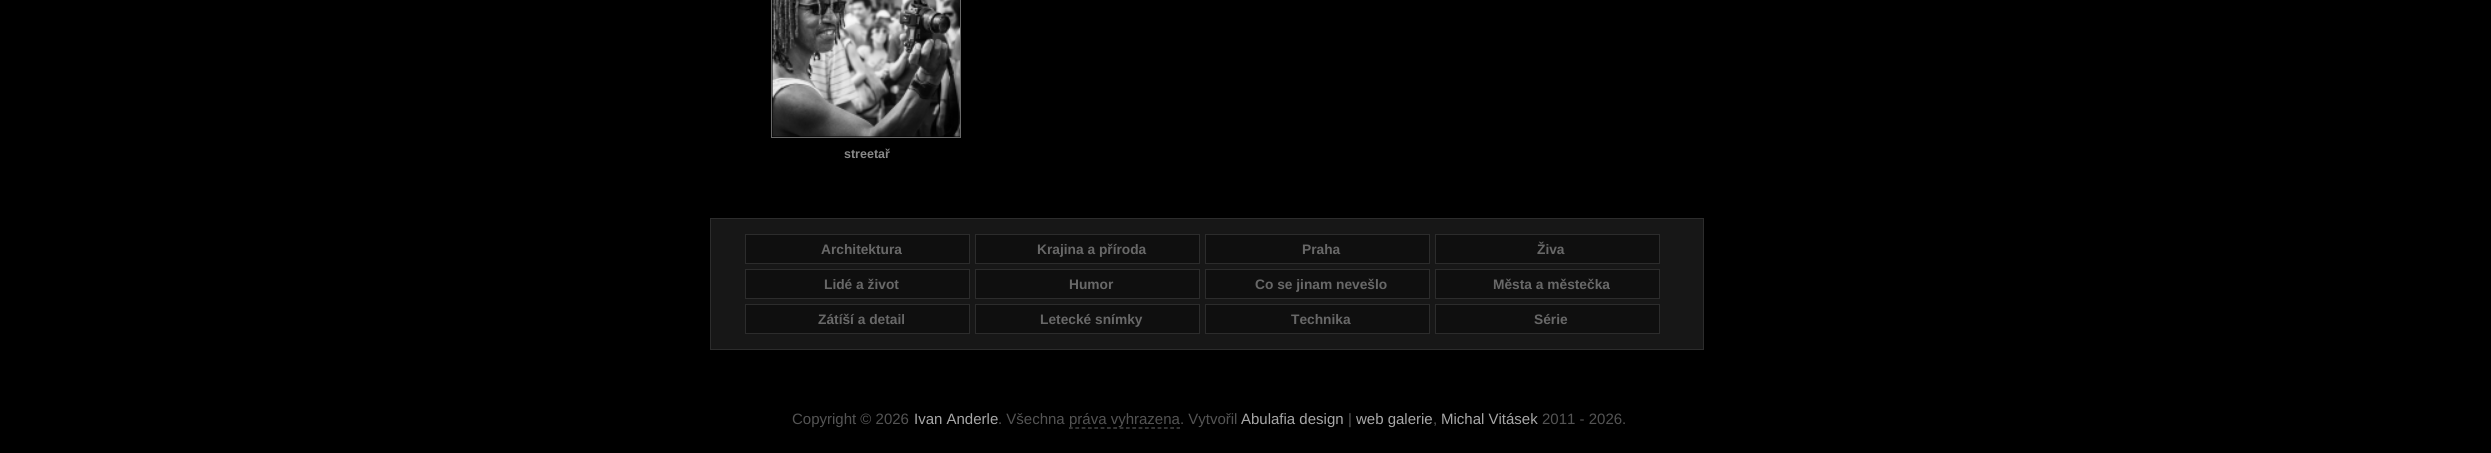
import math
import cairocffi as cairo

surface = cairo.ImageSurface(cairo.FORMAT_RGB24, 2491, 453)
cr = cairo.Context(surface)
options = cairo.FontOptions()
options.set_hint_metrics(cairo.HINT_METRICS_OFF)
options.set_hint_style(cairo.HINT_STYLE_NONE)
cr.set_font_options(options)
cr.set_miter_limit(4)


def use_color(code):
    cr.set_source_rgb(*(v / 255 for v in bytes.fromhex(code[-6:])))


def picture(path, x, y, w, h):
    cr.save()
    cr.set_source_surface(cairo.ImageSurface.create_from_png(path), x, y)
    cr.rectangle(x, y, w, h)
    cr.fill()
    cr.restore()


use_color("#000000")
cr.paint()
cr.rectangle(771.5, -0.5, 189, 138)
use_color("#686868")
cr.set_line_width(1)
cr.stroke()
picture("img1.png", 772, 0, 188, 137)
cr.select_font_face("Liberation Sans", cairo.FONT_SLANT_NORMAL, cairo.FONT_WEIGHT_BOLD)
cr.set_font_size(12.5)
use_color("#888888")
cr.move_to(844, 158)
cr.show_text("streetař")
use_color("#171717")
cr.rectangle(710.5, 218.5, 993, 131)
cr.fill_preserve()
use_color("#2c2c2c")
cr.stroke()
use_color("#0f0f0f")
cr.rectangle(745.5, 234.5, 224, 29)
cr.fill_preserve()
use_color("#2c2c2c")
cr.stroke()
cr.set_font_size(13.75)
use_color("#686868")
cr.move_to(821, 254)
cr.show_text("Architektura")
use_color("#0f0f0f")
cr.rectangle(975.5, 234.5, 224, 29)
cr.fill_preserve()
use_color("#2c2c2c")
cr.stroke()
use_color("#686868")
cr.move_to(1037, 254)
cr.show_text("Krajina a příroda")
use_color("#0f0f0f")
cr.rectangle(1205.5, 234.5, 224, 29)
cr.fill_preserve()
use_color("#2c2c2c")
cr.stroke()
use_color("#686868")
cr.move_to(1302, 254)
cr.show_text("Praha")
use_color("#0f0f0f")
cr.rectangle(1435.5, 234.5, 224, 29)
cr.fill_preserve()
use_color("#2c2c2c")
cr.stroke()
use_color("#686868")
cr.move_to(1537, 254)
cr.show_text("Živa")
use_color("#0f0f0f")
cr.rectangle(745.5, 269.5, 224, 29)
cr.fill_preserve()
use_color("#2c2c2c")
cr.stroke()
use_color("#686868")
cr.move_to(824, 289)
cr.show_text("Lidé a život")
use_color("#0f0f0f")
cr.rectangle(975.5, 269.5, 224, 29)
cr.fill_preserve()
use_color("#2c2c2c")
cr.stroke()
use_color("#686868")
cr.move_to(1069, 289)
cr.show_text("Humor")
use_color("#0f0f0f")
cr.rectangle(1205.5, 269.5, 224, 29)
cr.fill_preserve()
use_color("#2c2c2c")
cr.stroke()
use_color("#686868")
cr.move_to(1255, 289)
cr.show_text("Co se jinam nevešlo")
use_color("#0f0f0f")
cr.rectangle(1435.5, 269.5, 224, 29)
cr.fill_preserve()
use_color("#2c2c2c")
cr.stroke()
use_color("#686868")
cr.move_to(1493, 289)
cr.show_text("Města a městečka")
use_color("#0f0f0f")
cr.rectangle(745.5, 304.5, 224, 29)
cr.fill_preserve()
use_color("#2c2c2c")
cr.stroke()
use_color("#686868")
cr.move_to(818, 324)
cr.show_text("Zátíší a detail")
use_color("#0f0f0f")
cr.rectangle(975.5, 304.5, 224, 29)
cr.fill_preserve()
use_color("#2c2c2c")
cr.stroke()
use_color("#686868")
cr.move_to(1040, 324)
cr.show_text("Letecké snímky")
use_color("#0f0f0f")
cr.rectangle(1205.5, 304.5, 224, 29)
cr.fill_preserve()
use_color("#2c2c2c")
cr.stroke()
use_color("#686868")
cr.move_to(1291, 324)
cr.show_text("Technika")
use_color("#0f0f0f")
cr.rectangle(1435.5, 304.5, 224, 29)
cr.fill_preserve()
use_color("#2c2c2c")
cr.stroke()
use_color("#686868")
cr.move_to(1534, 324)
cr.show_text("Série")
cr.select_font_face("Liberation Sans")
cr.set_font_size(15)
use_color("#545454")
cr.move_to(792, 424)
cr.show_text("Copyright © 2026")
use_color("#a8a8a8")
cr.move_to(914, 424)
cr.show_text("Ivan Anderle")
use_color("#545454")
cr.move_to(998, 424)
cr.show_text(". Všechna")
cr.new_path()
cr.move_to(1069, 428)
cr.line_to(1180, 428)
cr.set_line_width(1.2)
cr.set_dash([3.75, 2.58])
cr.stroke()
cr.move_to(1069, 424)
cr.show_text("práva vyhrazena. Vytvořil")
use_color("#a8a8a8")
cr.move_to(1241, 424)
cr.show_text("Abulafia design")
use_color("#545454")
cr.move_to(1348, 424)
cr.show_text("|")
use_color("#a8a8a8")
cr.move_to(1356, 424)
cr.show_text("web galerie")
use_color("#545454")
cr.move_to(1433, 424)
cr.show_text(",")
use_color("#a8a8a8")
cr.move_to(1441, 424)
cr.show_text("Michal Vitásek")
use_color("#545454")
cr.move_to(1542, 424)
cr.show_text("2011 - 2026.")
surface.write_to_png("result.png")
